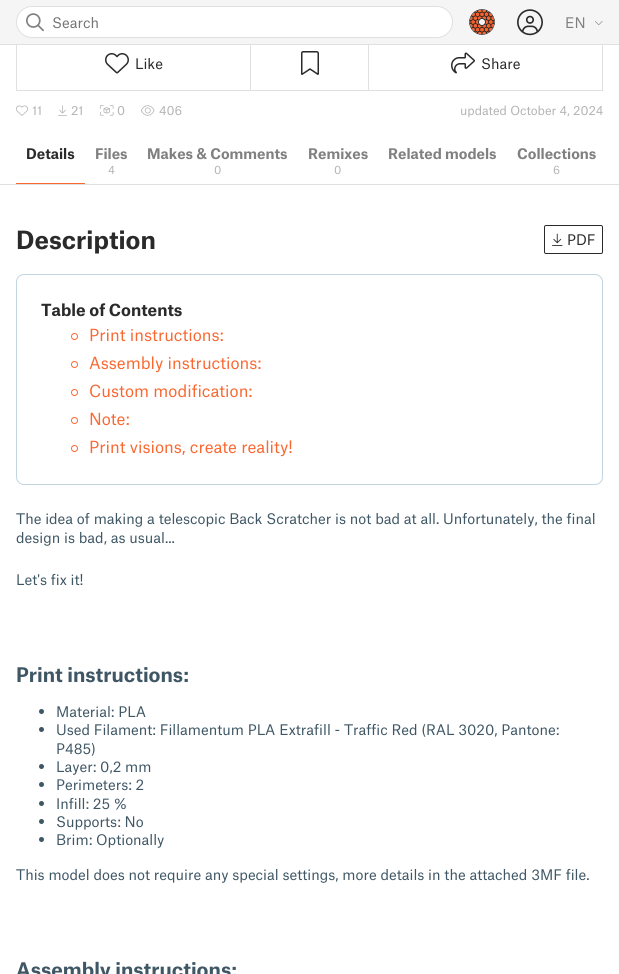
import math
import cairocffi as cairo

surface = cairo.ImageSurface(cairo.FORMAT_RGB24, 619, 974)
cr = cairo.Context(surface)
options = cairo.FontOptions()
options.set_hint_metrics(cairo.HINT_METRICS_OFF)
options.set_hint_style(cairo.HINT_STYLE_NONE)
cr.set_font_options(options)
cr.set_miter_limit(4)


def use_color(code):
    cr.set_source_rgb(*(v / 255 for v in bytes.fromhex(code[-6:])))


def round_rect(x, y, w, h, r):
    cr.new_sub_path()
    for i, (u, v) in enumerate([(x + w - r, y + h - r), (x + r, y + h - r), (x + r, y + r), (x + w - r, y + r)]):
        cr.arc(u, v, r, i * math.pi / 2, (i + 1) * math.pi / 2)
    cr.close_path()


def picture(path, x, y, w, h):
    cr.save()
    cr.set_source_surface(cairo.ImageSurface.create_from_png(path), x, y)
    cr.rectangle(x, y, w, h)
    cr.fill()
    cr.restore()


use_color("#ffffff")
cr.paint()
cr.rectangle(16.5, 35.5, 586, 55)
use_color("#e0e0e0")
cr.set_line_width(1)
cr.stroke()
use_color("#f5f5f5")
cr.rectangle(0, 0, 619, 44)
cr.fill()
use_color("#ffffff")
round_rect(16.5, 6.5, 436, 31, 15.5)
cr.fill_preserve()
use_color("#e0e0e0")
cr.stroke()
picture("img1.png", 26, 13, 18, 19)
cr.select_font_face("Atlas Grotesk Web")
cr.set_font_size(14)
use_color("#757575")
cr.move_to(52, 28)
cr.show_text("Search")
picture("img2.png", 469, 9, 26, 26)
picture("img3.png", 517, 9, 26, 27)
use_color("#808080")
cr.move_to(565, 28)
cr.show_text("EN")
picture("img4.png", 595, 21, 8, 4)
use_color("#e0e0e0")
cr.rectangle(0, 44, 619, 1)
cr.fill()
picture("img5.png", 105, 53, 24, 21)
use_color("#2a2a2a")
cr.move_to(135, 69)
cr.show_text("Like")
use_color("#e0e0e0")
cr.rectangle(250, 45, 1, 45)
cr.fill()
picture("img6.png", 301, 51, 18, 24)
cr.rectangle(368, 45, 1, 45)
cr.fill()
picture("img7.png", 451, 52, 24, 22)
use_color("#2a2a2a")
cr.move_to(481, 69)
cr.show_text("Share")
picture("img8.png", 16, 105, 12, 11)
cr.set_font_size(12)
use_color("#b3b3b3")
cr.move_to(32, 115)
cr.show_text("11")
picture("img9.png", 58, 105, 9, 11)
cr.move_to(71, 115)
cr.show_text("21")
picture("img10.png", 100, 105, 14, 11)
cr.move_to(117, 115)
cr.show_text("0")
picture("img11.png", 141, 105, 14, 11)
cr.move_to(159, 115)
cr.show_text("406")
cr.move_to(460, 115)
cr.show_text("updated October 4, 2024")
use_color("#e0e0e0")
cr.rectangle(0, 184, 619, 1)
cr.fill()
use_color("#fa6831")
cr.rectangle(16, 183, 69, 1)
cr.fill()
cr.select_font_face("Atlas Grotesk Web", cairo.FONT_SLANT_NORMAL, cairo.FONT_WEIGHT_BOLD)
cr.set_font_size(14)
use_color("#2a2a2a")
cr.move_to(26, 159)
cr.show_text("Details")
use_color("#808080")
cr.move_to(95, 159)
cr.show_text("Files")
cr.select_font_face("Atlas Grotesk Web")
cr.set_font_size(11)
use_color("#b3b3b3")
cr.move_to(108, 174)
cr.show_text("4")
cr.select_font_face("Atlas Grotesk Web", cairo.FONT_SLANT_NORMAL, cairo.FONT_WEIGHT_BOLD)
cr.set_font_size(14)
use_color("#808080")
cr.move_to(147, 159)
cr.show_text("Makes & Comments")
cr.select_font_face("Atlas Grotesk Web")
cr.set_font_size(11)
use_color("#b3b3b3")
cr.move_to(214, 174)
cr.show_text("0")
cr.select_font_face("Atlas Grotesk Web", cairo.FONT_SLANT_NORMAL, cairo.FONT_WEIGHT_BOLD)
cr.set_font_size(14)
use_color("#808080")
cr.move_to(308, 159)
cr.show_text("Remixes")
cr.select_font_face("Atlas Grotesk Web")
cr.set_font_size(11)
use_color("#b3b3b3")
cr.move_to(334, 174)
cr.show_text("0")
cr.select_font_face("Atlas Grotesk Web", cairo.FONT_SLANT_NORMAL, cairo.FONT_WEIGHT_BOLD)
cr.set_font_size(14)
use_color("#808080")
cr.move_to(388, 159)
cr.show_text("Related models")
cr.move_to(517, 159)
cr.show_text("Collections")
cr.select_font_face("Atlas Grotesk Web")
cr.set_font_size(11)
use_color("#b3b3b3")
cr.move_to(553, 174)
cr.show_text("6")
cr.select_font_face("Atlas Grotesk Web", cairo.FONT_SLANT_NORMAL, cairo.FONT_WEIGHT_BOLD)
cr.set_font_size(24)
use_color("#2a2a2a")
cr.move_to(16, 249)
cr.show_text("Description")
round_rect(544.5, 225.5, 58, 28, 1.5)
cr.stroke()
picture("img12.png", 552, 233, 11, 13)
cr.select_font_face("Atlas Grotesk Web")
cr.set_font_size(14)
cr.move_to(567, 245)
cr.show_text("PDF")
round_rect(16.5, 274.5, 586, 210, 7.5)
use_color("#c2d5e0")
cr.stroke()
cr.select_font_face("Atlas Grotesk Web", cairo.FONT_SLANT_NORMAL, cairo.FONT_WEIGHT_BOLD)
cr.set_font_size(16)
use_color("#2a2a2a")
cr.move_to(41, 316)
cr.show_text("Table of Contents")
cr.new_path()
cr.arc(74.5, 336.5, 3, 0, 2 * math.pi)
use_color("#fa6831")
cr.stroke()
cr.select_font_face("Atlas Grotesk Web")
cr.move_to(89, 341)
cr.show_text("Print instructions:")
cr.new_path()
cr.arc(74.5, 364.5, 3, 0, 2 * math.pi)
cr.stroke()
cr.move_to(89, 369)
cr.show_text("Assembly instructions:")
cr.new_path()
cr.arc(74.5, 392.5, 3, 0, 2 * math.pi)
cr.stroke()
cr.move_to(89, 397)
cr.show_text("Custom modification:")
cr.new_path()
cr.arc(74.5, 420.5, 3, 0, 2 * math.pi)
cr.stroke()
cr.move_to(89, 425)
cr.show_text("Note:")
cr.new_path()
cr.arc(74.5, 448.5, 3, 0, 2 * math.pi)
cr.stroke()
cr.move_to(89, 453)
cr.show_text("Print visions, create reality!")
cr.set_font_size(14)
use_color("#3f5765")
cr.move_to(16, 524)
cr.show_text("The idea of making a telescopic Back Scratcher is not bad at all. Unfortunately, the final")
cr.move_to(16, 543)
cr.show_text("design is bad, as usual...")
cr.move_to(16, 585)
cr.show_text("Let's fix it!")
cr.select_font_face("Atlas Grotesk Web", cairo.FONT_SLANT_NORMAL, cairo.FONT_WEIGHT_BOLD)
cr.set_font_size(19.25)
cr.move_to(16, 682)
cr.show_text("Print instructions:")
cr.new_path()
cr.arc(41.5, 711.5, 2.5, 0, 2 * math.pi)
cr.fill()
cr.select_font_face("Atlas Grotesk Web")
cr.set_font_size(14)
cr.move_to(56, 717)
cr.show_text("Material: PLA")
cr.new_path()
cr.arc(41.5, 729.5, 2.5, 0, 2 * math.pi)
cr.fill()
cr.move_to(56, 735)
cr.show_text("Used Filament: Fillamentum PLA Extrafill - Traffic Red (RAL 3020, Pantone:")
cr.move_to(56, 754)
cr.show_text("P485)")
cr.new_path()
cr.arc(41.5, 766.5, 2.5, 0, 2 * math.pi)
cr.fill()
cr.move_to(56, 772)
cr.show_text("Layer: 0,2 mm")
cr.new_path()
cr.arc(41.5, 784.5, 2.5, 0, 2 * math.pi)
cr.fill()
cr.move_to(56, 790)
cr.show_text("Perimeters: 2")
cr.new_path()
cr.arc(41.5, 803.5, 2.5, 0, 2 * math.pi)
cr.fill()
cr.move_to(56, 809)
cr.show_text("Infill: 25 %")
cr.new_path()
cr.arc(41.5, 821.5, 2.5, 0, 2 * math.pi)
cr.fill()
cr.move_to(56, 827)
cr.show_text("Supports: No")
cr.new_path()
cr.arc(41.5, 839.5, 2.5, 0, 2 * math.pi)
cr.fill()
cr.move_to(56, 845)
cr.show_text("Brim: Optionally")
cr.move_to(16, 880)
cr.show_text("This model does not require any special settings, more details in the attached 3MF file.")
cr.select_font_face("Atlas Grotesk Web", cairo.FONT_SLANT_NORMAL, cairo.FONT_WEIGHT_BOLD)
cr.set_font_size(19.25)
cr.move_to(16, 977)
cr.show_text("Assembly instructions:")
surface.write_to_png("result.png")
